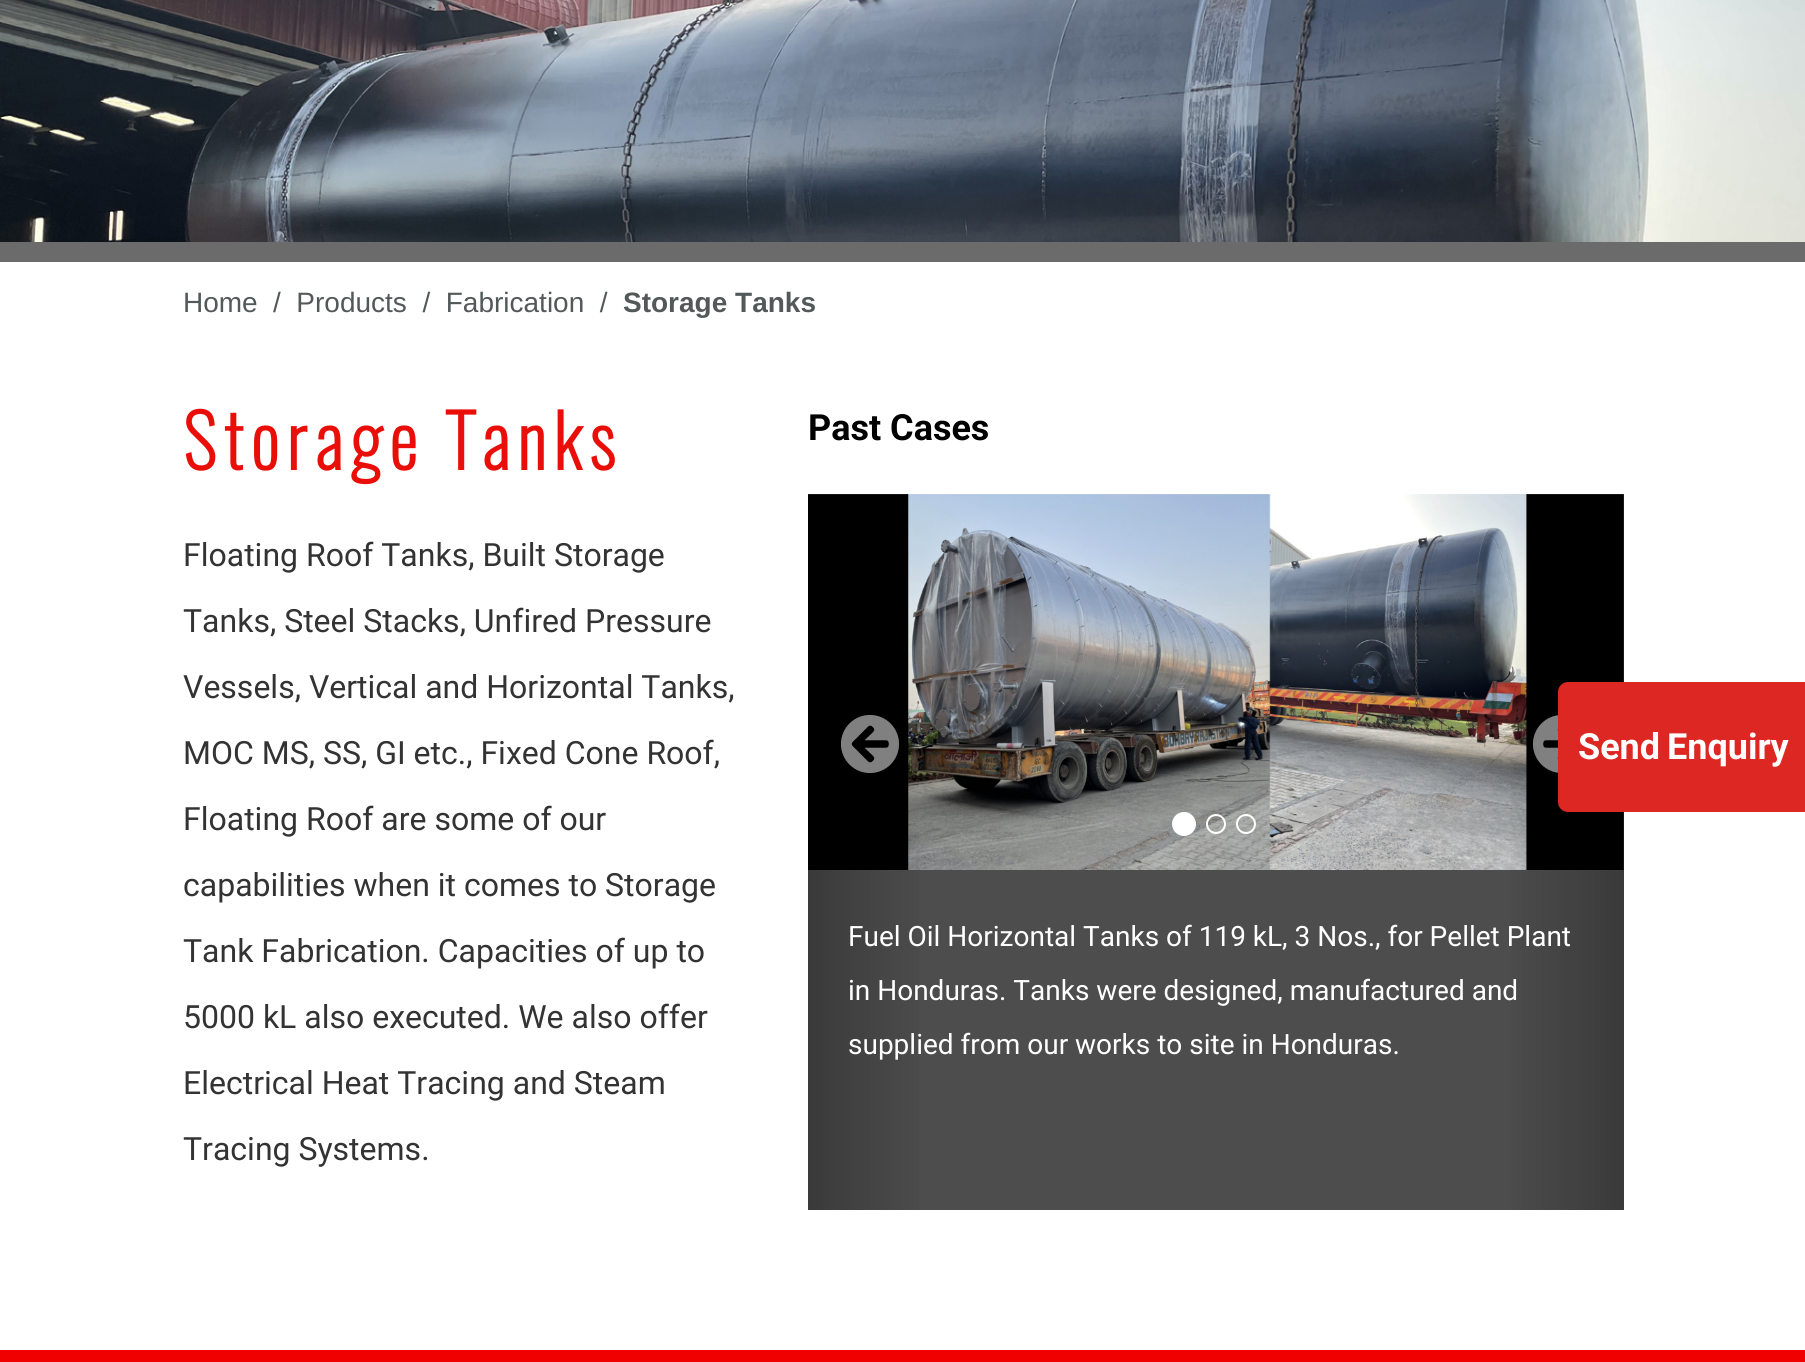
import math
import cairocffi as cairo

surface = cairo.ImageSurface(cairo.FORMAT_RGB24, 1805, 1362)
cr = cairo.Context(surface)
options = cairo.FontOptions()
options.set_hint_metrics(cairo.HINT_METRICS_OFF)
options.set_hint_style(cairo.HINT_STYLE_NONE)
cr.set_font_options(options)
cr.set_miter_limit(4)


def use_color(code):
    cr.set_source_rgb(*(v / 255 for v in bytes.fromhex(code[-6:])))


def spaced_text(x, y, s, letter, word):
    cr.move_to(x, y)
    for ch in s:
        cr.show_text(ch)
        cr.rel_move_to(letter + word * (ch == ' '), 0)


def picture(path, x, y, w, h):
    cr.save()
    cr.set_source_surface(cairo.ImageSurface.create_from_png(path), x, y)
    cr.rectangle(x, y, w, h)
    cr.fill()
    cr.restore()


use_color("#ffffff")
cr.paint()
picture("img1.png", 0, 0, 1805, 242)
use_color("#6b6b6b")
cr.rectangle(0, 242, 1805, 20)
cr.fill()
cr.select_font_face("Liberation Sans")
cr.set_font_size(28)
use_color("#535959")
cr.move_to(183, 312)
cr.show_text("Home")
cr.move_to(273, 312)
cr.show_text("/  Products  /  Fabrication  /")
cr.select_font_face("Liberation Sans", cairo.FONT_SLANT_NORMAL, cairo.FONT_WEIGHT_BOLD)
cr.move_to(623, 312)
cr.show_text("Storage Tanks")
cr.select_font_face("Oswald", cairo.FONT_SLANT_NORMAL, cairo.FONT_WEIGHT_BOLD)
cr.set_font_size(72.25)
use_color("#e90f08")
spaced_text(183, 470, "Storage Tanks", 8, 0)
cr.select_font_face("Roboto")
cr.set_font_size(32)
use_color("#333333")
cr.move_to(183, 566)
cr.show_text("Floating Roof Tanks, Built Storage")
cr.move_to(183, 632)
cr.show_text("Tanks, Steel Stacks, Unfired Pressure")
cr.move_to(183, 698)
cr.show_text("Vessels, Vertical and Horizontal Tanks,")
cr.move_to(183, 764)
cr.show_text("MOC MS, SS, GI etc., Fixed Cone Roof,")
cr.move_to(183, 830)
cr.show_text("Floating Roof are some of our")
cr.move_to(183, 896)
cr.show_text("capabilities when it comes to Storage")
cr.move_to(183, 962)
cr.show_text("Tank Fabrication. Capacities of up to")
cr.move_to(183, 1028)
cr.show_text("5000 kL also executed. We also offer")
cr.move_to(183, 1094)
cr.show_text("Electrical Heat Tracing and Steam")
cr.move_to(183, 1160)
cr.show_text("Tracing Systems.")
cr.select_font_face("Roboto", cairo.FONT_SLANT_NORMAL, cairo.FONT_WEIGHT_BOLD)
cr.set_font_size(36)
use_color("#000000")
cr.move_to(808, 440)
cr.show_text("Past Cases")
picture("img4.png", 808, 494, 816, 376)
use_color("#4d4d4d")
cr.rectangle(808, 870, 816, 340)
cr.fill()
gradient = cairo.LinearGradient(808, 959, 930, 959)
gradient.add_color_stop_rgba(0, 0, 0, 0, 0.25)
gradient.add_color_stop_rgba(1, 0, 0, 0, 0)
cr.set_source(gradient)
cr.rectangle(808, 708, 111, 502)
cr.fill()
picture("img2.png", 841, 715, 58, 58)
use_color("#ffffff")
cr.arc(1184, 824, 11, 0, 2 * math.pi)
cr.fill_preserve()
cr.stroke()
cr.arc(1216, 824, 9, 0, 2 * math.pi)
cr.stroke()
cr.arc(1246, 824, 9, 0, 2 * math.pi)
cr.stroke()
gradient = cairo.LinearGradient(1500, 959, 1624, 959)
gradient.add_color_stop_rgba(0, 0, 0, 0, 0)
gradient.add_color_stop_rgba(1, 0, 0, 0, 0.25)
cr.set_source(gradient)
cr.rectangle(1511, 708, 113, 502)
cr.fill()
picture("img3.png", 1533, 715, 25, 58)
cr.select_font_face("Roboto")
cr.set_font_size(28)
use_color("#ffffff")
cr.move_to(848, 946)
cr.show_text("Fuel Oil Horizontal Tanks of 119 kL, 3 Nos., for Pellet Plant")
cr.move_to(848, 1000)
cr.show_text("in Honduras. Tanks were designed, manufactured and")
cr.move_to(848, 1054)
cr.show_text("supplied from our works to site in Honduras.")
use_color("#dd2723")
cr.new_path()
cr.move_to(1568, 682)
cr.line_to(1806, 682)
cr.line_to(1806, 812)
cr.line_to(1568, 812)
cr.curve_to(1562.5, 812, 1558, 807.5, 1558, 802)
cr.line_to(1558, 692)
cr.curve_to(1558, 686.5, 1562.5, 682, 1568, 682)
cr.close_path()
cr.fill()
cr.select_font_face("Roboto", cairo.FONT_SLANT_NORMAL, cairo.FONT_WEIGHT_BOLD)
cr.set_font_size(36)
use_color("#ffffff")
spaced_text(1578, 759, "Send Enquiry", 0, -2)
use_color("#f00000")
cr.rectangle(0, 1350, 1805, 12)
cr.fill()
surface.write_to_png("result.png")
